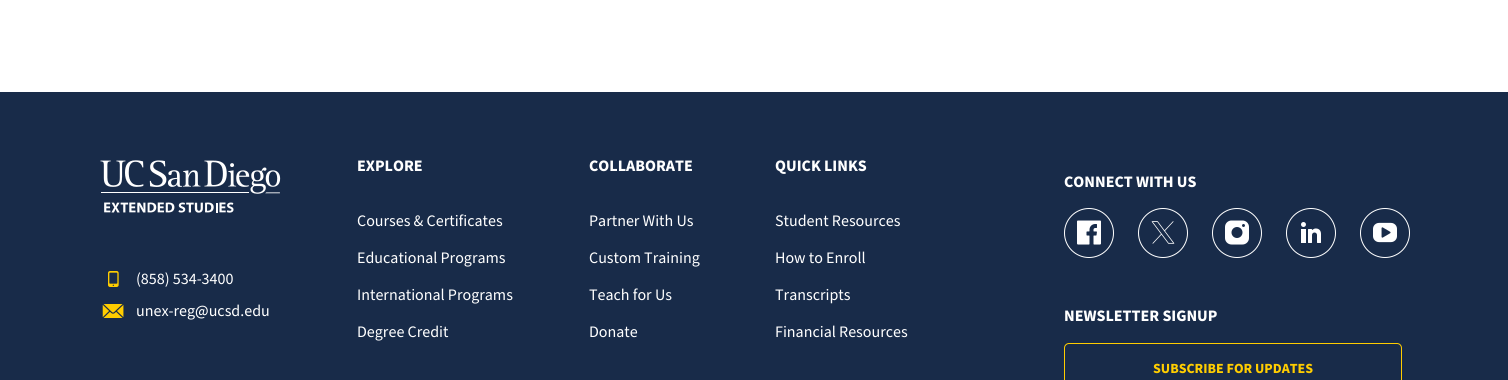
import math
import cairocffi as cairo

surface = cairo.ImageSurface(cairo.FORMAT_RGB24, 1508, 380)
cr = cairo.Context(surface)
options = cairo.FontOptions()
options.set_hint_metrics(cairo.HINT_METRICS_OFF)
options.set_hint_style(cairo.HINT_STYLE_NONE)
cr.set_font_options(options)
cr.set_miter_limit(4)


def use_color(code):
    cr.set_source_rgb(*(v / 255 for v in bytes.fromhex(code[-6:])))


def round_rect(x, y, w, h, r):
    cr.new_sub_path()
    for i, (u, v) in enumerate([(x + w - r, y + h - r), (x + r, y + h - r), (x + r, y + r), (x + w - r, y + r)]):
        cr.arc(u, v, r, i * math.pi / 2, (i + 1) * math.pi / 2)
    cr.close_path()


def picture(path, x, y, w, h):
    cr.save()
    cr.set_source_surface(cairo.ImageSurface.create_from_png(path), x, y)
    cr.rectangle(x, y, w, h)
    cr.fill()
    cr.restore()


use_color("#ffffff")
cr.paint()
use_color("#182b49")
cr.rectangle(0, 92, 1508, 288)
cr.fill()
picture("img1.png", 100, 160, 181, 53)
picture("img2.png", 108, 271, 11, 16)
cr.select_font_face("Source Sans Pro")
cr.set_font_size(16)
use_color("#ffffff")
cr.move_to(136, 284)
cr.show_text("(858) 534-3400")
picture("img3.png", 102, 304, 22, 14)
cr.move_to(136, 316)
cr.show_text("unex-reg@ucsd.edu")
cr.select_font_face("Source Sans Pro", cairo.FONT_SLANT_NORMAL, cairo.FONT_WEIGHT_BOLD)
cr.move_to(357, 171)
cr.show_text("EXPLORE")
cr.select_font_face("Source Sans Pro")
cr.move_to(357, 226)
cr.show_text("Courses & Certificates")
cr.move_to(357, 263)
cr.show_text("Educational Programs")
cr.move_to(357, 300)
cr.show_text("International Programs")
cr.move_to(357, 337)
cr.show_text("Degree Credit")
cr.select_font_face("Source Sans Pro", cairo.FONT_SLANT_NORMAL, cairo.FONT_WEIGHT_BOLD)
cr.move_to(589, 171)
cr.show_text("COLLABORATE")
cr.select_font_face("Source Sans Pro")
cr.move_to(589, 226)
cr.show_text("Partner With Us")
cr.move_to(589, 263)
cr.show_text("Custom Training")
cr.move_to(589, 300)
cr.show_text("Teach for Us")
cr.move_to(589, 337)
cr.show_text("Donate")
cr.select_font_face("Source Sans Pro", cairo.FONT_SLANT_NORMAL, cairo.FONT_WEIGHT_BOLD)
cr.move_to(775, 171)
cr.show_text("QUICK LINKS")
cr.select_font_face("Source Sans Pro")
cr.move_to(775, 226)
cr.show_text("Student Resources")
cr.move_to(775, 263)
cr.show_text("How to Enroll")
cr.move_to(775, 300)
cr.show_text("Transcripts")
cr.move_to(775, 337)
cr.show_text("Financial Resources")
cr.select_font_face("Source Sans Pro", cairo.FONT_SLANT_NORMAL, cairo.FONT_WEIGHT_BOLD)
cr.move_to(1064, 187)
cr.show_text("CONNECT WITH US")
cr.new_path()
cr.arc(1089, 233, 24.5, 0, 2 * math.pi)
cr.set_line_width(1)
cr.stroke()
picture("img4.png", 1077, 220, 24, 25)
cr.arc(1163, 233, 24.5, 0, 2 * math.pi)
cr.stroke()
picture("img5.png", 1151, 221, 24, 23)
cr.arc(1237, 233, 24.5, 0, 2 * math.pi)
cr.stroke()
picture("img6.png", 1225, 220, 24, 25)
cr.arc(1311, 233, 24.5, 0, 2 * math.pi)
cr.stroke()
picture("img7.png", 1301, 222, 20, 21)
cr.arc(1385, 233, 24.5, 0, 2 * math.pi)
cr.stroke()
picture("img8.png", 1373, 222, 24, 21)
cr.move_to(1064, 321)
cr.show_text("NEWSLETTER SIGNUP")
round_rect(1064.5, 343.5, 337, 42, 4.5)
use_color("#ffcd00")
cr.stroke()
cr.set_font_size(14)
cr.move_to(1153, 373)
cr.show_text("SUBSCRIBE FOR UPDATES")
surface.write_to_png("result.png")
